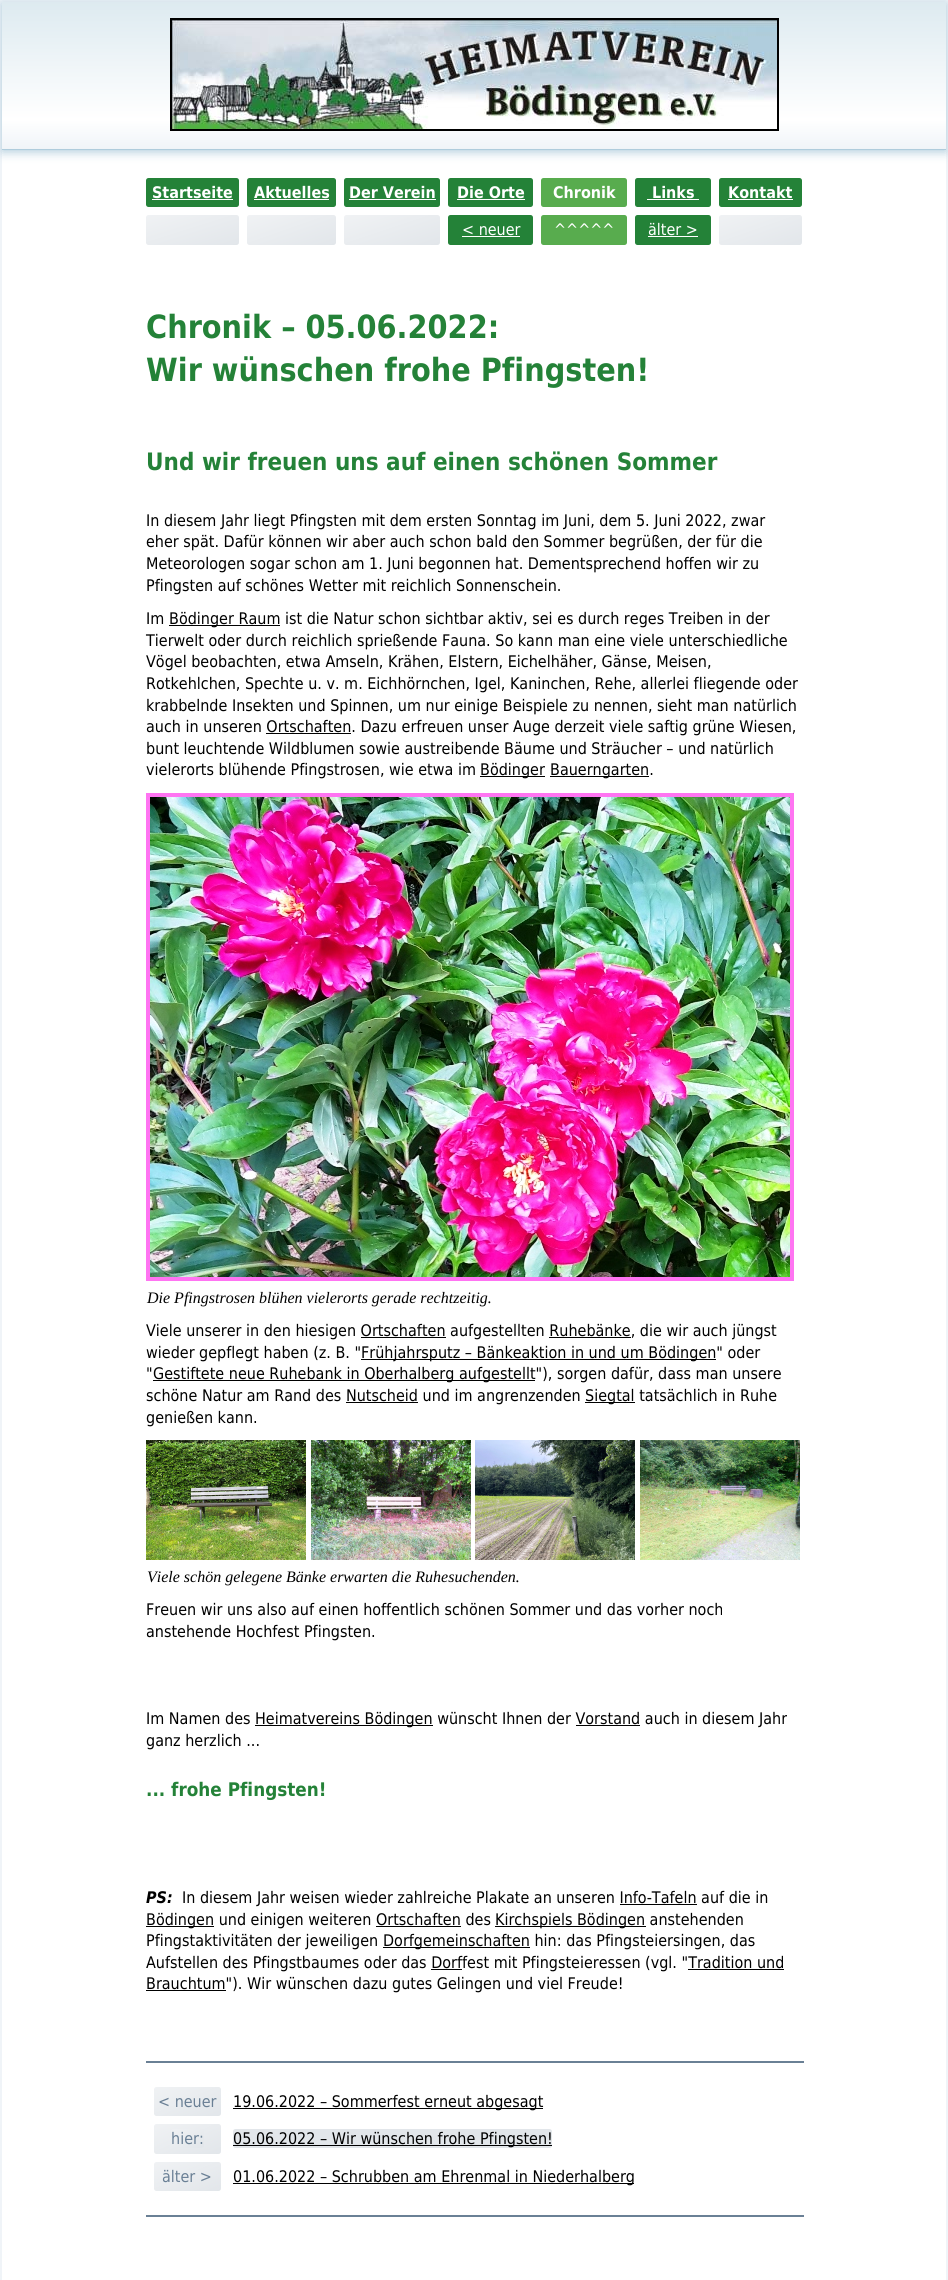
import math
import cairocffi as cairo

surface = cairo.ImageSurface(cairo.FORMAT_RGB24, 948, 2280)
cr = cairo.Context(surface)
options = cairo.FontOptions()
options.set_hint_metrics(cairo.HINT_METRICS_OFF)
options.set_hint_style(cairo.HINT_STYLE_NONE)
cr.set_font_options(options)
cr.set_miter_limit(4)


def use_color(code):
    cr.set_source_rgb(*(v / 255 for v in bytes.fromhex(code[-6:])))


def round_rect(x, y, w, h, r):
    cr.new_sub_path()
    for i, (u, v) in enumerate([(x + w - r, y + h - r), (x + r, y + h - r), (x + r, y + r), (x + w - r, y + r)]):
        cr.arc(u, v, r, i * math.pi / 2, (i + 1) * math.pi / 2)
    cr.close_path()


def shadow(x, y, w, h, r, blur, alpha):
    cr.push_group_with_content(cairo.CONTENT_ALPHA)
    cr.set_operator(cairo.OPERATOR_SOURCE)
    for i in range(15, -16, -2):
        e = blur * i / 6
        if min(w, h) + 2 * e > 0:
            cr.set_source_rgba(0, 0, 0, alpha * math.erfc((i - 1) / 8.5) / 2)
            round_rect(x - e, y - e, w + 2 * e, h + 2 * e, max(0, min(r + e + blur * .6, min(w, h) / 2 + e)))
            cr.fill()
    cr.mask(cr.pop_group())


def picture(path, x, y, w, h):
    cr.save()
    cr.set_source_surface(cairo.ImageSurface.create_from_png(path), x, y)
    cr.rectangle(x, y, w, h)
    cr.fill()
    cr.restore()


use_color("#ffffff")
cr.paint()
cr.rectangle(0.5, 0.5, 947, 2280)
use_color("#f0f4f8")
cr.set_line_width(1)
cr.stroke()
cr.rectangle(1.5, 1.5, 945, 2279)
cr.stroke()
use_color("#afccdc")
shadow(2, 4, 944, 148, 0, 5, 1)
gradient = cairo.LinearGradient(474, 2, 474, 149)
gradient.add_color_stop_rgba(0, 0.867, 0.918, 0.941, 1)
gradient.add_color_stop_rgba(0.8, 1, 1, 1, 1)
gradient.add_color_stop_rgba(1, 0.941, 0.957, 0.973, 1)
cr.set_source(gradient)
cr.rectangle(2, 2, 944, 147)
cr.fill()
use_color("#afccdc")
cr.rectangle(2, 149, 944, 1)
cr.fill()
cr.rectangle(171, 19, 607, 111)
use_color("#000000")
cr.set_line_width(2)
cr.stroke()
picture("img1.png", 172, 20, 605, 109)
use_color("#248238")
round_rect(146, 178, 93, 29, 2.5)
cr.fill()
cr.select_font_face("DejaVu Sans", cairo.FONT_SLANT_NORMAL, cairo.FONT_WEIGHT_BOLD)
cr.set_font_size(16)
use_color("#ffffff")
cr.move_to(152, 198)
cr.show_text("Startseite")
cr.rectangle(152, 199, 81, 1)
cr.fill()
use_color("#248238")
round_rect(247, 178, 89, 29, 2.5)
cr.fill()
use_color("#ffffff")
cr.move_to(254, 198)
cr.show_text("Aktuelles")
cr.rectangle(254, 199, 75, 1)
cr.fill()
use_color("#248238")
round_rect(344, 178, 96, 29, 2.5)
cr.fill()
use_color("#ffffff")
cr.move_to(349, 198)
cr.show_text("Der Verein")
cr.rectangle(349, 199, 87, 1)
cr.fill()
use_color("#248238")
round_rect(448, 178, 85, 29, 2.5)
cr.fill()
use_color("#ffffff")
cr.move_to(457, 198)
cr.show_text("Die Orte")
cr.rectangle(457, 199, 68, 1)
cr.fill()
use_color("#58ac4e")
round_rect(541, 178, 86, 29, 2.5)
cr.fill()
use_color("#ffffff")
cr.move_to(553, 198)
cr.show_text("Chronik")
use_color("#248238")
round_rect(635, 178, 76, 29, 2.5)
cr.fill()
use_color("#ffffff")
cr.move_to(652, 198)
cr.show_text("Links")
cr.rectangle(647, 199, 52, 1)
cr.fill()
use_color("#248238")
round_rect(719, 178, 83, 29, 2.5)
cr.fill()
use_color("#ffffff")
cr.move_to(728, 198)
cr.show_text("Kontakt")
cr.rectangle(728, 199, 65, 1)
cr.fill()
gradient = cairo.LinearGradient(184, 203, 201, 257)
gradient.add_color_stop_rgba(0, 0.941, 0.949, 0.957, 1)
gradient.add_color_stop_rgba(1, 0.886, 0.902, 0.918, 1)
cr.set_source(gradient)
round_rect(146, 215, 93, 30, 2.5)
cr.fill()
gradient = cairo.LinearGradient(282, 203, 301, 257)
gradient.add_color_stop_rgba(0, 0.941, 0.949, 0.957, 1)
gradient.add_color_stop_rgba(1, 0.886, 0.902, 0.918, 1)
cr.set_source(gradient)
round_rect(247, 215, 89, 30, 2.5)
cr.fill()
gradient = cairo.LinearGradient(383, 203, 401, 257)
gradient.add_color_stop_rgba(0, 0.941, 0.949, 0.957, 1)
gradient.add_color_stop_rgba(1, 0.886, 0.902, 0.918, 1)
cr.set_source(gradient)
round_rect(344, 215, 96, 30, 2.5)
cr.fill()
use_color("#248238")
round_rect(448, 215, 85, 30, 2.5)
cr.fill()
cr.select_font_face("DejaVu Sans")
use_color("#ffffff")
cr.move_to(462, 235)
cr.show_text("< neuer")
cr.rectangle(462, 236, 58, 1)
cr.fill()
use_color("#58ac4e")
round_rect(541, 215, 86, 30, 2.5)
cr.fill()
use_color("#ffffff")
cr.move_to(554, 235)
cr.show_text("^^^^^")
use_color("#248238")
round_rect(635, 215, 76, 30, 2.5)
cr.fill()
use_color("#ffffff")
cr.move_to(648, 235)
cr.show_text("älter >")
cr.rectangle(648, 236, 50, 1)
cr.fill()
gradient = cairo.LinearGradient(751, 203, 770, 257)
gradient.add_color_stop_rgba(0, 0.941, 0.949, 0.957, 1)
gradient.add_color_stop_rgba(1, 0.886, 0.902, 0.918, 1)
cr.set_source(gradient)
round_rect(719, 215, 83, 30, 2.5)
cr.fill()
cr.select_font_face("DejaVu Sans", cairo.FONT_SLANT_NORMAL, cairo.FONT_WEIGHT_BOLD)
cr.set_font_size(32)
use_color("#248238")
cr.move_to(146, 338)
cr.show_text("Chronik – 05.06.2022:")
cr.move_to(146, 381)
cr.show_text("Wir wünschen frohe Pfingsten!")
cr.set_font_size(24)
cr.move_to(146, 470)
cr.show_text("Und wir freuen uns auf einen schönen Sommer")
cr.select_font_face("DejaVu Sans")
cr.set_font_size(16)
use_color("#000000")
cr.move_to(146, 526)
cr.show_text("In diesem Jahr liegt Pfingsten mit dem ersten Sonntag im Juni, dem 5. Juni 2022, zwar")
cr.move_to(146, 547)
cr.show_text("eher spät. Dafür können wir aber auch schon bald den Sommer begrüßen, der für die")
cr.move_to(146, 569)
cr.show_text("Meteorologen sogar schon am 1. Juni begonnen hat. Dementsprechend hoffen wir zu")
cr.move_to(146, 591)
cr.show_text("Pfingsten auf schönes Wetter mit reichlich Sonnenschein.")
cr.move_to(146, 624)
cr.show_text("Im")
cr.rectangle(169, 625, 111, 1)
cr.fill()
cr.move_to(169, 624)
cr.show_text("Bödinger Raum ist die Natur schon sichtbar aktiv, sei es durch reges Treiben in der")
cr.move_to(146, 646)
cr.show_text("Tierwelt oder durch reichlich sprießende Fauna. So kann man eine viele unterschiedliche")
cr.move_to(146, 667)
cr.show_text("Vögel beobachten, etwa Amseln, Krähen, Elstern, Eichelhäher, Gänse, Meisen,")
cr.move_to(146, 689)
cr.show_text("Rotkehlchen, Spechte u. v. m. Eichhörnchen, Igel, Kaninchen, Rehe, allerlei fliegende oder")
cr.move_to(146, 711)
cr.show_text("krabbelnde Insekten und Spinnen, um nur einige Beispiele zu nennen, sieht man natürlich")
cr.move_to(146, 732)
cr.show_text("auch in unseren Ortschaften. Dazu erfreuen unser Auge derzeit viele saftig grüne Wiesen,")
cr.rectangle(266, 733, 85, 1)
cr.fill()
cr.move_to(146, 754)
cr.show_text("bunt leuchtende Wildblumen sowie austreibende Bäume und Sträucher – und natürlich")
cr.move_to(146, 775)
cr.show_text("vielerorts blühende Pfingstrosen, wie etwa im")
cr.rectangle(480, 776, 65, 1)
cr.fill()
cr.move_to(480, 775)
cr.show_text("Bödinger")
cr.rectangle(550, 776, 99, 1)
cr.fill()
cr.move_to(550, 775)
cr.show_text("Bauerngarten.")
cr.rectangle(148, 795, 644, 484)
use_color("#ff74f2")
cr.set_line_width(4)
cr.stroke()
picture("img2.png", 150, 797, 640, 480)
cr.select_font_face("Liberation Serif", cairo.FONT_SLANT_ITALIC)
use_color("#000000")
cr.move_to(147, 1303)
cr.show_text("Die Pfingstrosen blühen vielerorts gerade rechtzeitig.")
cr.select_font_face("DejaVu Sans")
cr.move_to(146, 1336)
cr.show_text("Viele unserer in den hiesigen Ortschaften aufgestellten Ruhebänke, die wir auch jüngst")
cr.rectangle(361, 1337, 85, 1)
cr.fill()
cr.rectangle(549, 1337, 82, 1)
cr.fill()
cr.move_to(146, 1358)
cr.show_text("wieder gepflegt haben (z. B. \"")
cr.rectangle(361, 1359, 355, 1)
cr.fill()
cr.move_to(361, 1358)
cr.show_text("Frühjahrsputz – Bänkeaktion in und um Bödingen\" oder")
cr.move_to(146, 1379)
cr.show_text("\"")
cr.rectangle(153, 1380, 382, 1)
cr.fill()
cr.move_to(153, 1379)
cr.show_text("Gestiftete neue Ruhebank in Oberhalberg aufgestellt\"), sorgen dafür, dass man unsere")
cr.move_to(146, 1401)
cr.show_text("schöne Natur am Rand des Nutscheid und im angrenzenden")
cr.rectangle(585, 1402, 50, 1)
cr.fill()
cr.move_to(585, 1401)
cr.show_text("Siegtal tatsächlich in Ruhe")
cr.rectangle(346, 1402, 72, 1)
cr.fill()
cr.move_to(146, 1423)
cr.show_text("genießen kann.")
picture("img3.png", 146, 1440, 160, 120)
picture("img4.png", 311, 1440, 160, 120)
picture("img5.png", 475, 1440, 160, 120)
picture("img6.png", 640, 1440, 160, 120)
cr.select_font_face("Liberation Serif", cairo.FONT_SLANT_ITALIC)
cr.move_to(147, 1582)
cr.show_text("Viele schön gelegene Bänke erwarten die Ruhesuchenden.")
cr.select_font_face("DejaVu Sans")
cr.move_to(146, 1615)
cr.show_text("Freuen wir uns also auf einen hoffentlich schönen Sommer und das vorher noch")
cr.move_to(146, 1637)
cr.show_text("anstehende Hochfest Pfingsten.")
cr.move_to(146, 1724)
cr.show_text("Im Namen des")
cr.rectangle(255, 1725, 178, 1)
cr.fill()
cr.move_to(255, 1724)
cr.show_text("Heimatvereins Bödingen wünscht Ihnen der Vorstand auch in diesem Jahr")
cr.rectangle(576, 1725, 64, 1)
cr.fill()
cr.move_to(146, 1746)
cr.show_text("ganz herzlich ...")
cr.select_font_face("DejaVu Sans", cairo.FONT_SLANT_NORMAL, cairo.FONT_WEIGHT_BOLD)
cr.set_font_size(18.75)
use_color("#248238")
cr.move_to(146, 1796)
cr.show_text("... frohe Pfingsten!")
cr.select_font_face("DejaVu Sans", cairo.FONT_SLANT_ITALIC, cairo.FONT_WEIGHT_BOLD)
cr.set_font_size(16)
use_color("#000000")
cr.move_to(146, 1903)
cr.show_text("PS:")
cr.select_font_face("DejaVu Sans")
cr.move_to(182, 1903)
cr.show_text("In diesem Jahr weisen wieder zahlreiche Plakate an unseren Info-Tafeln auf die in")
cr.rectangle(620, 1904, 77, 1)
cr.fill()
cr.rectangle(146, 1926, 68, 1)
cr.fill()
cr.move_to(146, 1925)
cr.show_text("Bödingen und einigen weiteren Ortschaften des")
cr.rectangle(495, 1926, 151, 1)
cr.fill()
cr.move_to(495, 1925)
cr.show_text("Kirchspiels Bödingen anstehenden")
cr.rectangle(376, 1926, 85, 1)
cr.fill()
cr.move_to(146, 1946)
cr.show_text("Pfingstaktivitäten der jeweiligen")
cr.rectangle(383, 1947, 147, 1)
cr.fill()
cr.move_to(383, 1946)
cr.show_text("Dorfgemeinschaften hin: das Pfingsteiersingen, das")
cr.move_to(146, 1968)
cr.show_text("Aufstellen des Pfingstbaumes oder das Dorffest mit Pfingsteieressen (vgl. \"Tradition und")
cr.rectangle(431, 1969, 31, 1)
cr.fill()
cr.rectangle(146, 1990, 80, 1)
cr.fill()
cr.move_to(146, 1989)
cr.show_text("Brauchtum\"). Wir wünschen dazu gutes Gelingen und viel Freude!")
cr.rectangle(688, 1969, 96, 1)
cr.fill()
use_color("#6a8095")
cr.rectangle(146, 2061, 658, 2)
cr.fill()
gradient = cairo.LinearGradient(177, 2077, 198, 2126)
gradient.add_color_stop_rgba(0, 0.941, 0.949, 0.957, 1)
gradient.add_color_stop_rgba(1, 0.886, 0.902, 0.918, 1)
cr.set_source(gradient)
round_rect(154, 2087, 67, 29, 2.5)
cr.fill()
use_color("#6a8095")
cr.move_to(158, 2107)
cr.show_text("< neuer")
use_color("#000000")
cr.rectangle(233, 2108, 310, 1)
cr.fill()
cr.move_to(233, 2107)
cr.show_text("19.06.2022 – Sommerfest erneut abgesagt")
gradient = cairo.LinearGradient(176, 2114, 199, 2164)
gradient.add_color_stop_rgba(0, 0.941, 0.949, 0.957, 1)
gradient.add_color_stop_rgba(1, 0.886, 0.902, 0.918, 1)
cr.set_source(gradient)
round_rect(154, 2124, 67, 30, 2.5)
cr.fill()
gradient = cairo.LinearGradient(179, 2124, 196, 2153)
gradient.add_color_stop_rgba(0, 0.941, 0.949, 0.957, 1)
gradient.add_color_stop_rgba(1, 0.886, 0.902, 0.918, 1)
cr.set_source(gradient)
round_rect(171, 2129, 33, 19, 2.5)
cr.fill()
use_color("#6a8095")
cr.move_to(171, 2144)
cr.show_text("hier:")
use_color("#e2e6ea")
round_rect(233, 2129, 319, 19, 2.5)
cr.fill()
use_color("#000000")
cr.rectangle(233, 2145, 319, 1)
cr.fill()
cr.move_to(233, 2144)
cr.show_text("05.06.2022 – Wir wünschen frohe Pfingsten!")
gradient = cairo.LinearGradient(177, 2152, 198, 2201)
gradient.add_color_stop_rgba(0, 0.941, 0.949, 0.957, 1)
gradient.add_color_stop_rgba(1, 0.886, 0.902, 0.918, 1)
cr.set_source(gradient)
round_rect(154, 2162, 67, 29, 2.5)
cr.fill()
use_color("#6a8095")
cr.move_to(162, 2182)
cr.show_text("älter >")
use_color("#000000")
cr.rectangle(233, 2183, 401, 1)
cr.fill()
cr.move_to(233, 2182)
cr.show_text("01.06.2022 – Schrubben am Ehrenmal in Niederhalberg")
use_color("#6a8095")
cr.rectangle(146, 2215, 658, 2)
cr.fill()
surface.write_to_png("result.png")
